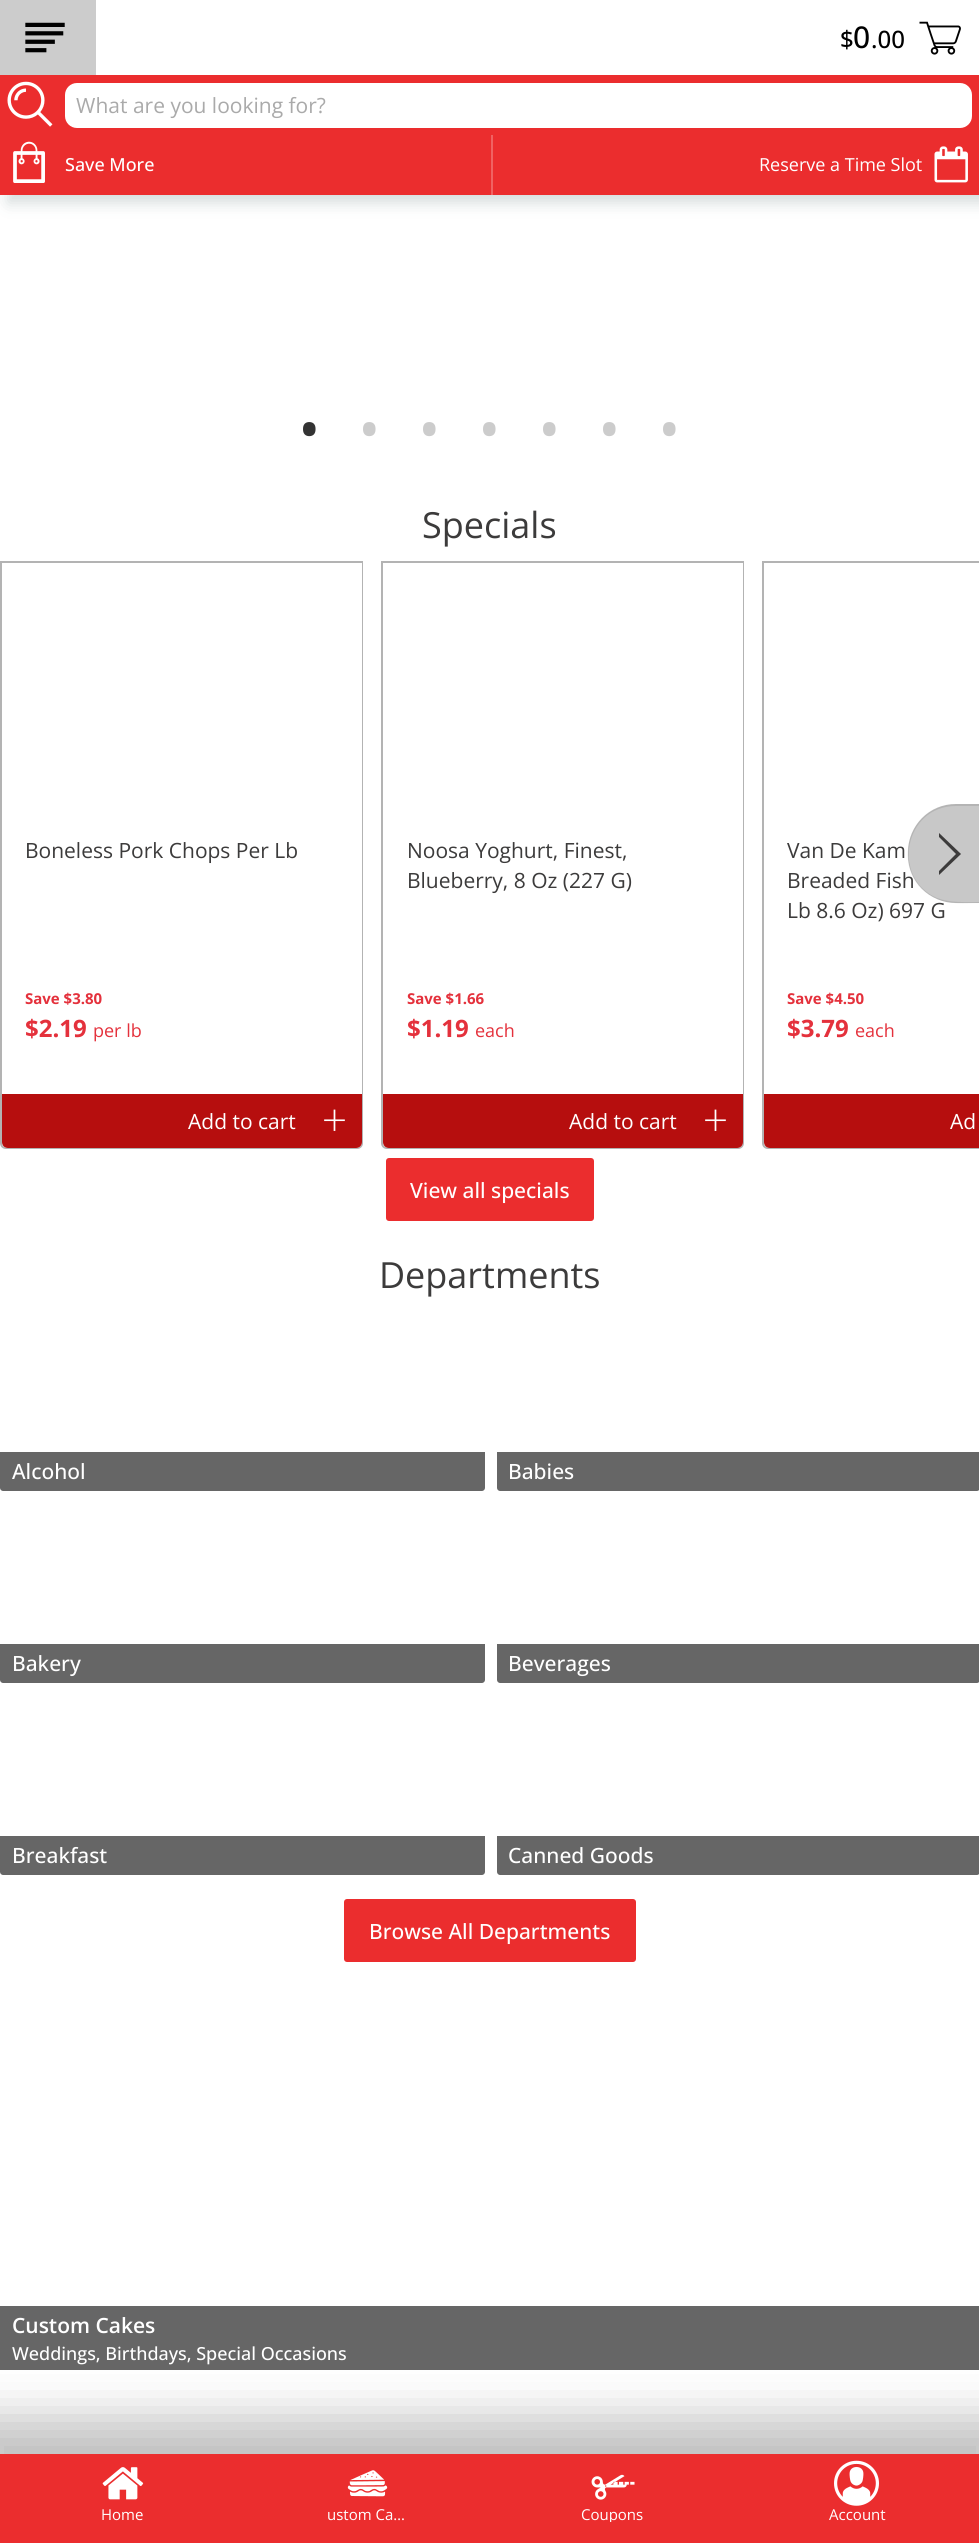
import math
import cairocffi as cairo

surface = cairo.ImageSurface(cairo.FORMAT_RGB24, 979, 2543)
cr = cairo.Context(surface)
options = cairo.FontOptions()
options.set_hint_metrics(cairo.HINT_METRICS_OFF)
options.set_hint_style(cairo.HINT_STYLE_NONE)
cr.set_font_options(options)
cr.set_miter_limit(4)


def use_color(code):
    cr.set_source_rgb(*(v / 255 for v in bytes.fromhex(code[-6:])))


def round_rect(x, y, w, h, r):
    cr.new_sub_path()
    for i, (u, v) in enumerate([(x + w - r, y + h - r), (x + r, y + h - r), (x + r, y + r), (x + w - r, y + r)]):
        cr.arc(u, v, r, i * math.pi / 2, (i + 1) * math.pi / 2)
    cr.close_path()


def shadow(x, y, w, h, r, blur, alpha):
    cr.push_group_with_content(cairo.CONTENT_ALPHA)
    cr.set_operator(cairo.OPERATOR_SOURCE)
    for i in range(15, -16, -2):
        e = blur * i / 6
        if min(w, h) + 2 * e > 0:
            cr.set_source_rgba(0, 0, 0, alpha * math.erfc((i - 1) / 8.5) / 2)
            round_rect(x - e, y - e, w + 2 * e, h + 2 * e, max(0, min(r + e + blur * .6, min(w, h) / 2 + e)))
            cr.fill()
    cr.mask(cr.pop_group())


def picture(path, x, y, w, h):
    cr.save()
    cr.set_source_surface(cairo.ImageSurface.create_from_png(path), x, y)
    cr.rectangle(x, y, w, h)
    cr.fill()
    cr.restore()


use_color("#ffffff")
cr.paint()
use_color("#2f4f4f")
shadow(8, 8, 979, 195, 0, 7.5, 0.2)
use_color("#ffffff")
cr.rectangle(96, 0, 883, 75)
cr.fill()
use_color("#cccccc")
cr.rectangle(0, 0, 96, 75)
cr.fill()
picture("img1.png", 25, 22, 40, 31)
cr.select_font_face("Open Sans Medium")
cr.set_font_size(24)
use_color("#000000")
cr.move_to(840, 48)
cr.show_text("$")
cr.set_font_size(30)
cr.move_to(853, 48)
cr.show_text("0")
cr.set_font_size(24)
cr.move_to(871, 48)
cr.show_text(".00")
picture("img2.png", 919, 21, 42, 34)
use_color("#eb2d2e")
cr.rectangle(0, 75, 979, 120)
cr.fill()
picture("img3.png", 7, 81, 46, 46)
use_color("#ffffff")
round_rect(65, 83, 907, 45, 12)
cr.fill()
cr.select_font_face("Open Sans")
cr.set_font_size(21)
use_color("#aaaaaa")
cr.move_to(76, 113)
cr.show_text("What are you looking for?")
picture("img4.png", 13, 141, 32, 42)
cr.select_font_face("Open Sans Medium")
cr.set_font_size(18)
use_color("#ffffff")
cr.move_to(65, 171)
cr.show_text("Save More")
use_color("#f06262")
cr.rectangle(491, 135, 2, 60)
cr.fill()
cr.select_font_face("Open Sans")
use_color("#ffffff")
cr.move_to(759, 171)
cr.show_text("Reserve a Time Slot")
picture("img5.png", 934, 146, 34, 37)
cr.set_font_size(60)
use_color("#333333")
cr.move_to(298, 451)
cr.show_text("•")
use_color("#cccccc")
cr.move_to(358, 451)
cr.show_text("•")
cr.move_to(418, 451)
cr.show_text("•")
cr.move_to(478, 451)
cr.show_text("•")
cr.move_to(538, 451)
cr.show_text("•")
cr.move_to(598, 451)
cr.show_text("•")
cr.move_to(658, 451)
cr.show_text("•")
cr.set_font_size(36)
use_color("#3c3b3b")
cr.move_to(422, 538)
cr.show_text("Specials")
cr.new_path()
cr.move_to(763, 562)
cr.line_to(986, 562)
cr.line_to(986, 1143)
cr.curve_to(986, 1146, 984, 1148, 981, 1148)
cr.line_to(768, 1148)
cr.curve_to(765, 1148, 763, 1146, 763, 1143)
cr.close_path()
use_color("#b3b3b3")
cr.stroke()
use_color("#ffffff")
cr.new_path()
cr.move_to(764, 563)
cr.line_to(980, 563)
cr.line_to(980, 1148)
cr.line_to(770, 1148)
cr.curve_to(766.5, 1148, 764, 1145.5, 764, 1142)
cr.close_path()
cr.fill()
cr.set_font_size(21)
use_color("#3c3b3b")
cr.move_to(787, 888)
cr.show_text("Breaded Fish")
cr.move_to(787, 918)
cr.show_text("Lb 8.6 Oz) 697 G")
use_color("#c8c8c8")
cr.new_path()
cr.move_to(956, 804)
cr.line_to(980, 804)
cr.line_to(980, 903)
cr.line_to(956, 903)
cr.curve_to(929.5, 903, 908, 881.5, 908, 855)
cr.line_to(908, 852)
cr.curve_to(908, 825.5, 929.5, 804, 956, 804)
cr.close_path()
cr.fill()
cr.set_source_rgba(0, 0, 0, 0.1)
cr.set_fill_rule(cairo.FILL_RULE_EVEN_ODD)
cr.new_path()
cr.move_to(956, 804)
cr.line_to(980, 804)
cr.line_to(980, 903)
cr.curve_to(965, 903, 950, 905, 937, 899)
cr.curve_to(889, 879, 903, 804, 956, 804)
cr.close_path()
cr.move_to(956, 806)
cr.line_to(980, 806)
cr.line_to(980, 902)
cr.curve_to(966, 902, 950, 903, 937, 898)
cr.curve_to(891, 878, 904, 806, 956, 806)
cr.close_path()
cr.fill()
use_color("#3c3b3b")
cr.set_fill_rule(cairo.FILL_RULE_WINDING)
cr.new_path()
cr.move_to(961, 854)
cr.line_to(939, 833)
cr.line_to(939, 837)
cr.line_to(956, 854)
cr.line_to(939, 871)
cr.line_to(939, 875)
cr.close_path()
cr.fill()
cr.new_path()
cr.move_to(1, 562)
cr.line_to(362, 562)
cr.line_to(362, 1143)
cr.curve_to(362, 1146, 360, 1148, 357, 1148)
cr.line_to(6, 1148)
cr.curve_to(3, 1148, 1, 1146, 1, 1143)
cr.close_path()
use_color("#b3b3b3")
cr.stroke()
use_color("#ffffff")
cr.new_path()
cr.move_to(2, 563)
cr.line_to(362, 563)
cr.line_to(362, 1142)
cr.curve_to(362, 1145.5, 359.5, 1148, 356, 1148)
cr.line_to(8, 1148)
cr.curve_to(4.5, 1148, 2, 1145.5, 2, 1142)
cr.close_path()
cr.fill()
use_color("#3c3b3b")
cr.move_to(25, 858)
cr.show_text("Boneless Pork Chops Per Lb")
cr.select_font_face("Open Sans", cairo.FONT_SLANT_NORMAL, cairo.FONT_WEIGHT_BOLD)
cr.set_font_size(15)
use_color("#e4313c")
cr.move_to(25, 1004)
cr.show_text("Save $3.80")
cr.set_font_size(24)
cr.move_to(25, 1037)
cr.show_text("$2.19")
cr.select_font_face("Open Sans")
cr.set_font_size(18)
cr.move_to(93, 1037)
cr.show_text("per lb")
use_color("#b60e0e")
cr.new_path()
cr.move_to(2, 1094)
cr.line_to(362, 1094)
cr.line_to(362, 1142)
cr.curve_to(362, 1145.5, 359.5, 1148, 356, 1148)
cr.line_to(8, 1148)
cr.curve_to(4.5, 1148, 2, 1145.5, 2, 1142)
cr.close_path()
cr.fill()
cr.set_font_size(21)
use_color("#ffffff")
cr.move_to(188, 1129)
cr.show_text("Add to cart")
picture("img6.png", 324, 1109, 21, 22)
cr.new_path()
cr.move_to(382, 562)
cr.line_to(743, 562)
cr.line_to(743, 1143)
cr.curve_to(743, 1146, 741, 1148, 738, 1148)
cr.line_to(387, 1148)
cr.curve_to(384, 1148, 382, 1146, 382, 1143)
cr.close_path()
use_color("#b3b3b3")
cr.stroke()
use_color("#ffffff")
cr.new_path()
cr.move_to(383, 563)
cr.line_to(743, 563)
cr.line_to(743, 1142)
cr.curve_to(743, 1145.5, 740.5, 1148, 737, 1148)
cr.line_to(389, 1148)
cr.curve_to(385.5, 1148, 383, 1145.5, 383, 1142)
cr.close_path()
cr.fill()
use_color("#3c3b3b")
cr.move_to(407, 858)
cr.show_text("Noosa Yoghurt, Finest,")
cr.move_to(407, 888)
cr.show_text("Blueberry, 8 Oz (227 G)")
cr.select_font_face("Open Sans", cairo.FONT_SLANT_NORMAL, cairo.FONT_WEIGHT_BOLD)
cr.set_font_size(15)
use_color("#e4313c")
cr.move_to(407, 1004)
cr.show_text("Save $1.66")
cr.set_font_size(24)
cr.move_to(407, 1037)
cr.show_text("$1.19")
cr.select_font_face("Open Sans")
cr.set_font_size(18)
cr.move_to(475, 1037)
cr.show_text("each")
use_color("#b60e0e")
cr.new_path()
cr.move_to(383, 1094)
cr.line_to(743, 1094)
cr.line_to(743, 1142)
cr.curve_to(743, 1145.5, 740.5, 1148, 737, 1148)
cr.line_to(389, 1148)
cr.curve_to(385.5, 1148, 383, 1145.5, 383, 1142)
cr.close_path()
cr.fill()
cr.set_font_size(21)
use_color("#ffffff")
cr.move_to(569, 1129)
cr.show_text("Add to cart")
picture("img6.png", 705, 1109, 21, 22)
use_color("#3c3b3b")
cr.move_to(787, 858)
cr.show_text("Van De Kam")
cr.select_font_face("Open Sans", cairo.FONT_SLANT_NORMAL, cairo.FONT_WEIGHT_BOLD)
cr.set_font_size(15)
use_color("#e4313c")
cr.move_to(787, 1004)
cr.show_text("Save $4.50")
cr.set_font_size(24)
cr.move_to(787, 1037)
cr.show_text("$3.79")
cr.select_font_face("Open Sans")
cr.set_font_size(18)
cr.move_to(855, 1037)
cr.show_text("each")
use_color("#b60e0e")
cr.new_path()
cr.move_to(764, 1094)
cr.line_to(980, 1094)
cr.line_to(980, 1148)
cr.line_to(770, 1148)
cr.curve_to(766.5, 1148, 764, 1145.5, 764, 1142)
cr.close_path()
cr.fill()
cr.set_font_size(21)
use_color("#ffffff")
cr.move_to(950, 1129)
cr.show_text("Ad")
use_color("#eb2d2e")
round_rect(386, 1158, 208, 63, 3)
cr.fill()
cr.select_font_face("Open Sans Medium")
use_color("#ffffff")
cr.move_to(410, 1198)
cr.show_text("View all specials")
cr.select_font_face("Open Sans")
cr.set_font_size(36)
use_color("#3c3b3b")
cr.move_to(379, 1288)
cr.show_text("Departments")
use_color("#666666")
cr.new_path()
cr.move_to(0, 1452)
cr.line_to(485, 1452)
cr.line_to(485, 1488)
cr.curve_to(485, 1489.5, 483.5, 1491, 482, 1491)
cr.line_to(3, 1491)
cr.curve_to(1.5, 1491, 0, 1489.5, 0, 1488)
cr.close_path()
cr.fill()
cr.select_font_face("Open Sans Medium")
cr.set_font_size(21)
use_color("#ffffff")
cr.move_to(12, 1479)
cr.show_text("Alcohol")
use_color("#666666")
cr.new_path()
cr.move_to(497, 1452)
cr.line_to(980, 1452)
cr.line_to(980, 1488)
cr.curve_to(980, 1489.5, 978.5, 1491, 977, 1491)
cr.line_to(500, 1491)
cr.curve_to(498.5, 1491, 497, 1489.5, 497, 1488)
cr.close_path()
cr.fill()
use_color("#ffffff")
cr.move_to(508, 1479)
cr.show_text("Babies")
use_color("#666666")
cr.new_path()
cr.move_to(0, 1644)
cr.line_to(485, 1644)
cr.line_to(485, 1680)
cr.curve_to(485, 1681.5, 483.5, 1683, 482, 1683)
cr.line_to(3, 1683)
cr.curve_to(1.5, 1683, 0, 1681.5, 0, 1680)
cr.close_path()
cr.fill()
use_color("#ffffff")
cr.move_to(12, 1671)
cr.show_text("Bakery")
use_color("#666666")
cr.new_path()
cr.move_to(497, 1644)
cr.line_to(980, 1644)
cr.line_to(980, 1680)
cr.curve_to(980, 1681.5, 978.5, 1683, 977, 1683)
cr.line_to(500, 1683)
cr.curve_to(498.5, 1683, 497, 1681.5, 497, 1680)
cr.close_path()
cr.fill()
use_color("#ffffff")
cr.move_to(508, 1671)
cr.show_text("Beverages")
use_color("#666666")
cr.new_path()
cr.move_to(0, 1836)
cr.line_to(485, 1836)
cr.line_to(485, 1872)
cr.curve_to(485, 1873.5, 483.5, 1875, 482, 1875)
cr.line_to(3, 1875)
cr.curve_to(1.5, 1875, 0, 1873.5, 0, 1872)
cr.close_path()
cr.fill()
use_color("#ffffff")
cr.move_to(12, 1863)
cr.show_text("Breakfast")
use_color("#666666")
cr.new_path()
cr.move_to(497, 1836)
cr.line_to(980, 1836)
cr.line_to(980, 1872)
cr.curve_to(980, 1873.5, 978.5, 1875, 977, 1875)
cr.line_to(500, 1875)
cr.curve_to(498.5, 1875, 497, 1873.5, 497, 1872)
cr.close_path()
cr.fill()
use_color("#ffffff")
cr.move_to(508, 1863)
cr.show_text("Canned Goods")
use_color("#eb2d2e")
round_rect(344, 1899, 292, 63, 3)
cr.fill()
use_color("#ffffff")
cr.move_to(369, 1939)
cr.show_text("Browse All Departments")
use_color("#666666")
cr.rectangle(0, 2306, 979, 64)
cr.fill()
cr.select_font_face("Open Sans SemiBold")
use_color("#ffffff")
cr.move_to(12, 2333)
cr.show_text("Custom Cakes")
cr.select_font_face("Open Sans Medium")
cr.set_font_size(18)
cr.move_to(12, 2360)
cr.show_text("Weddings, Birthdays, Special Occasions")
use_color("#000000")
shadow(-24, 2418, 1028, 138, 0, 24, 0.25)
use_color("#eb2d2e")
cr.rectangle(0, 2454, 979, 89)
cr.fill()
picture("img7.png", 102, 2467, 42, 33)
cr.select_font_face("Open Sans")
cr.set_font_size(15)
use_color("#ffffff")
cr.move_to(101, 2520)
cr.show_text("Home")
picture("img8.png", 347, 2470, 41, 27)
cr.move_to(327, 2520)
cr.show_text("ustom Ca…")
picture("img9.png", 591, 2474, 44, 26)
cr.save()
cr.rectangle(567, 2454, 90, 68)
cr.clip()
cr.move_to(581, 2520)
cr.show_text("Coupons")
cr.restore()
picture("img10.png", 834, 2460, 45, 46)
cr.move_to(829, 2520)
cr.show_text("Account")
surface.write_to_png("result.png")
